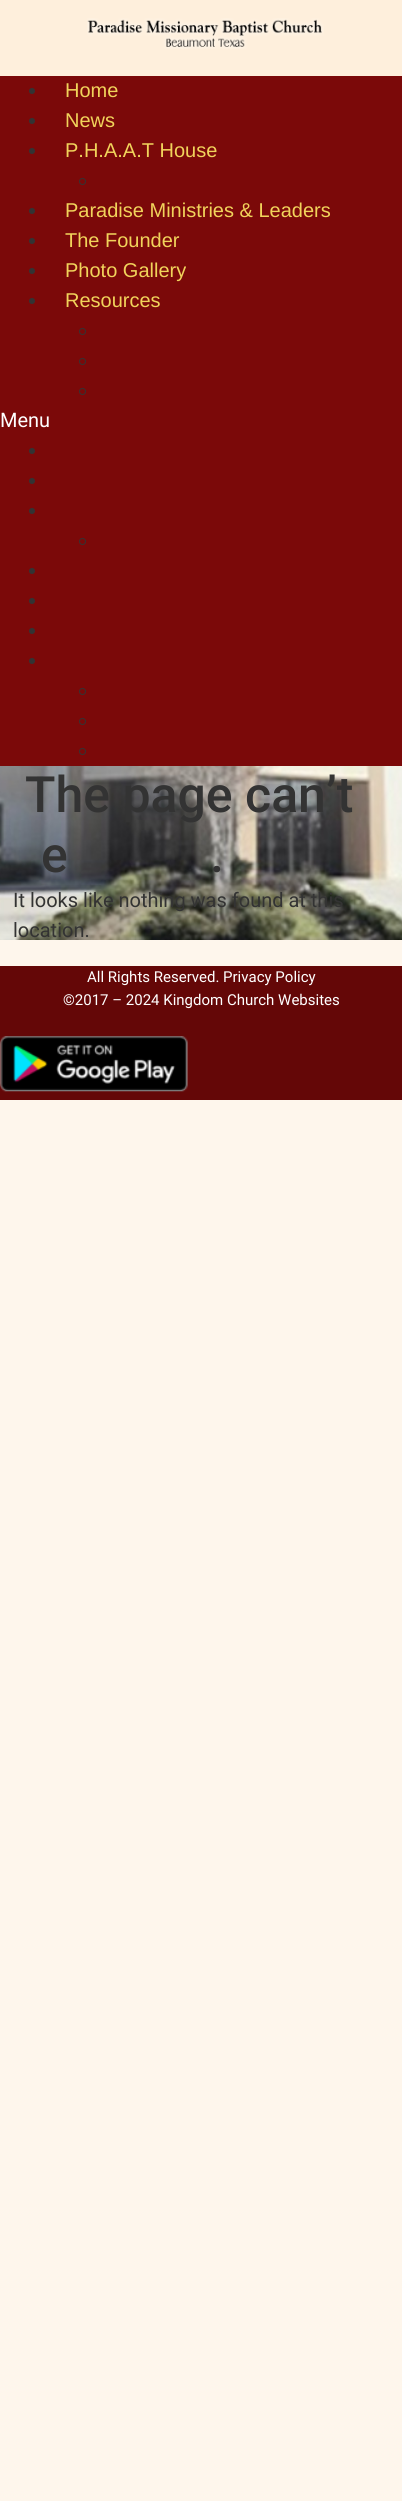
import math
import cairocffi as cairo

surface = cairo.ImageSurface(cairo.FORMAT_RGB24, 402, 2501)
cr = cairo.Context(surface)
options = cairo.FontOptions()
options.set_hint_metrics(cairo.HINT_METRICS_OFF)
options.set_hint_style(cairo.HINT_STYLE_NONE)
cr.set_font_options(options)
cr.set_miter_limit(4)


def use_color(code):
    cr.set_source_rgb(*(v / 255 for v in bytes.fromhex(code[-6:])))


def picture(path, x, y, w, h):
    cr.save()
    cr.set_source_surface(cairo.ImageSurface.create_from_png(path), x, y)
    cr.rectangle(x, y, w, h)
    cr.fill()
    cr.restore()


use_color("#fef6ec")
cr.paint()
picture("img1.png", 0, 766, 402, 174)
use_color("#feefdc")
cr.rectangle(0, 0, 402, 76)
cr.fill()
picture("img2.png", 87, 18, 237, 31)
use_color("#7b0909")
cr.rectangle(0, 76, 402, 690)
cr.fill()
use_color("#333333")
cr.arc(32, 91, 3, 0, 2 * math.pi)
cr.fill()
cr.select_font_face("Liberation Sans")
cr.set_font_size(20)
use_color("#f1d35b")
cr.move_to(65, 97)
cr.show_text("Home")
use_color("#333333")
cr.new_path()
cr.arc(32, 121, 3, 0, 2 * math.pi)
cr.fill()
use_color("#f1d35b")
cr.move_to(65, 127)
cr.show_text("News")
use_color("#333333")
cr.new_path()
cr.arc(32, 151, 3, 0, 2 * math.pi)
cr.fill()
use_color("#f1d35b")
cr.move_to(65, 157)
cr.show_text("P.H.A.A.T House")
cr.new_path()
cr.arc(82.5, 181.5, 3, 0, 2 * math.pi)
use_color("#333333")
cr.set_line_width(1)
cr.stroke()
cr.arc(32, 211, 3, 0, 2 * math.pi)
cr.fill()
use_color("#f1d35b")
cr.move_to(65, 217)
cr.show_text("Paradise Ministries & Leaders")
use_color("#333333")
cr.new_path()
cr.arc(32, 241, 3, 0, 2 * math.pi)
cr.fill()
use_color("#f1d35b")
cr.move_to(65, 247)
cr.show_text("The Founder")
use_color("#333333")
cr.new_path()
cr.arc(32, 271, 3, 0, 2 * math.pi)
cr.fill()
use_color("#f1d35b")
cr.move_to(65, 277)
cr.show_text("Photo Gallery")
use_color("#333333")
cr.new_path()
cr.arc(32, 301, 3, 0, 2 * math.pi)
cr.fill()
use_color("#f1d35b")
cr.move_to(65, 307)
cr.show_text("Resources")
cr.new_path()
cr.arc(82.5, 331.5, 3, 0, 2 * math.pi)
use_color("#333333")
cr.stroke()
cr.arc(82.5, 361.5, 3, 0, 2 * math.pi)
cr.stroke()
cr.arc(82.5, 391.5, 3, 0, 2 * math.pi)
cr.stroke()
cr.select_font_face("Roboto")
use_color("#ffffff")
cr.move_to(0, 427)
cr.show_text("Menu")
use_color("#333333")
cr.new_path()
cr.arc(32, 451, 3, 0, 2 * math.pi)
cr.fill()
cr.arc(32, 481, 3, 0, 2 * math.pi)
cr.fill()
cr.arc(32, 511, 3, 0, 2 * math.pi)
cr.fill()
cr.arc(82.5, 541.5, 3, 0, 2 * math.pi)
cr.stroke()
cr.arc(32, 571, 3, 0, 2 * math.pi)
cr.fill()
cr.arc(32, 601, 3, 0, 2 * math.pi)
cr.fill()
cr.arc(32, 631, 3, 0, 2 * math.pi)
cr.fill()
cr.arc(32, 661, 3, 0, 2 * math.pi)
cr.fill()
cr.arc(82.5, 691.5, 3, 0, 2 * math.pi)
cr.stroke()
cr.arc(82.5, 721.5, 3, 0, 2 * math.pi)
cr.stroke()
cr.arc(82.5, 751.5, 3, 0, 2 * math.pi)
cr.stroke()
cr.select_font_face("Roboto Medium")
cr.set_font_size(50)
cr.move_to(25, 812)
cr.show_text("The page can’t")
cr.move_to(41, 872)
cr.show_text("e")
cr.move_to(210, 872)
cr.show_text(".")
cr.select_font_face("Roboto")
cr.set_font_size(20)
cr.move_to(13, 907)
cr.show_text("It looks like nothing was found at this")
cr.move_to(13, 937)
cr.show_text("location.")
use_color("#640707")
cr.rectangle(0, 966, 402, 134)
cr.fill()
cr.set_font_size(15)
use_color("#ffffff")
cr.move_to(87, 982)
cr.show_text("All Rights Reserved. Privacy Policy")
cr.move_to(63, 1005)
cr.show_text("©2017 – 2024 Kingdom Church Websites")
picture("img3.png", 0, 1036, 188, 56)
surface.write_to_png("result.png")
